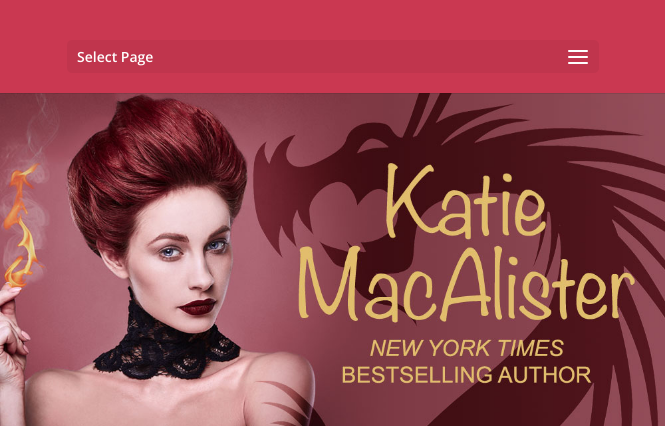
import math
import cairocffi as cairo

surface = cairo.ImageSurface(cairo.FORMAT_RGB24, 665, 443)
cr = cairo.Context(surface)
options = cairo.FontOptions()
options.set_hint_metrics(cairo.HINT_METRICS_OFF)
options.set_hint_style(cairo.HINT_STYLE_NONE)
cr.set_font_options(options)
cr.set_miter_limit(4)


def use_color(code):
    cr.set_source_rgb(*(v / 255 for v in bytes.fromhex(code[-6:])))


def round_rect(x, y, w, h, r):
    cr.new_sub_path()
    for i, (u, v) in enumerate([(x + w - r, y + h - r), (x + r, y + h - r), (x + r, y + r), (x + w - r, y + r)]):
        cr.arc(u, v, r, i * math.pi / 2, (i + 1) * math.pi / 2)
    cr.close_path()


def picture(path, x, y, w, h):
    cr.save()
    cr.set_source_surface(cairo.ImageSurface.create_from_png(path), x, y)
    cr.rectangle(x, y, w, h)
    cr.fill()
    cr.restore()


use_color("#ca3851")
cr.paint()
picture("img2.png", 0, 93, 665, 333)
cr.set_source_rgba(0, 0, 0, 0.1)
cr.rectangle(0, 93, 665, 1)
cr.fill()
use_color("#c0354d")
round_rect(67, 40, 532, 33, 5)
cr.fill()
cr.select_font_face("Open Sans SemiBold")
cr.set_font_size(14)
use_color("#fefdfd")
cr.move_to(77, 62)
cr.show_text("Select Page")
picture("img1.png", 568, 50, 20, 14)
use_color("#ffffff")
cr.rectangle(0, 426, 665, 17)
cr.fill()
surface.write_to_png("result.png")
